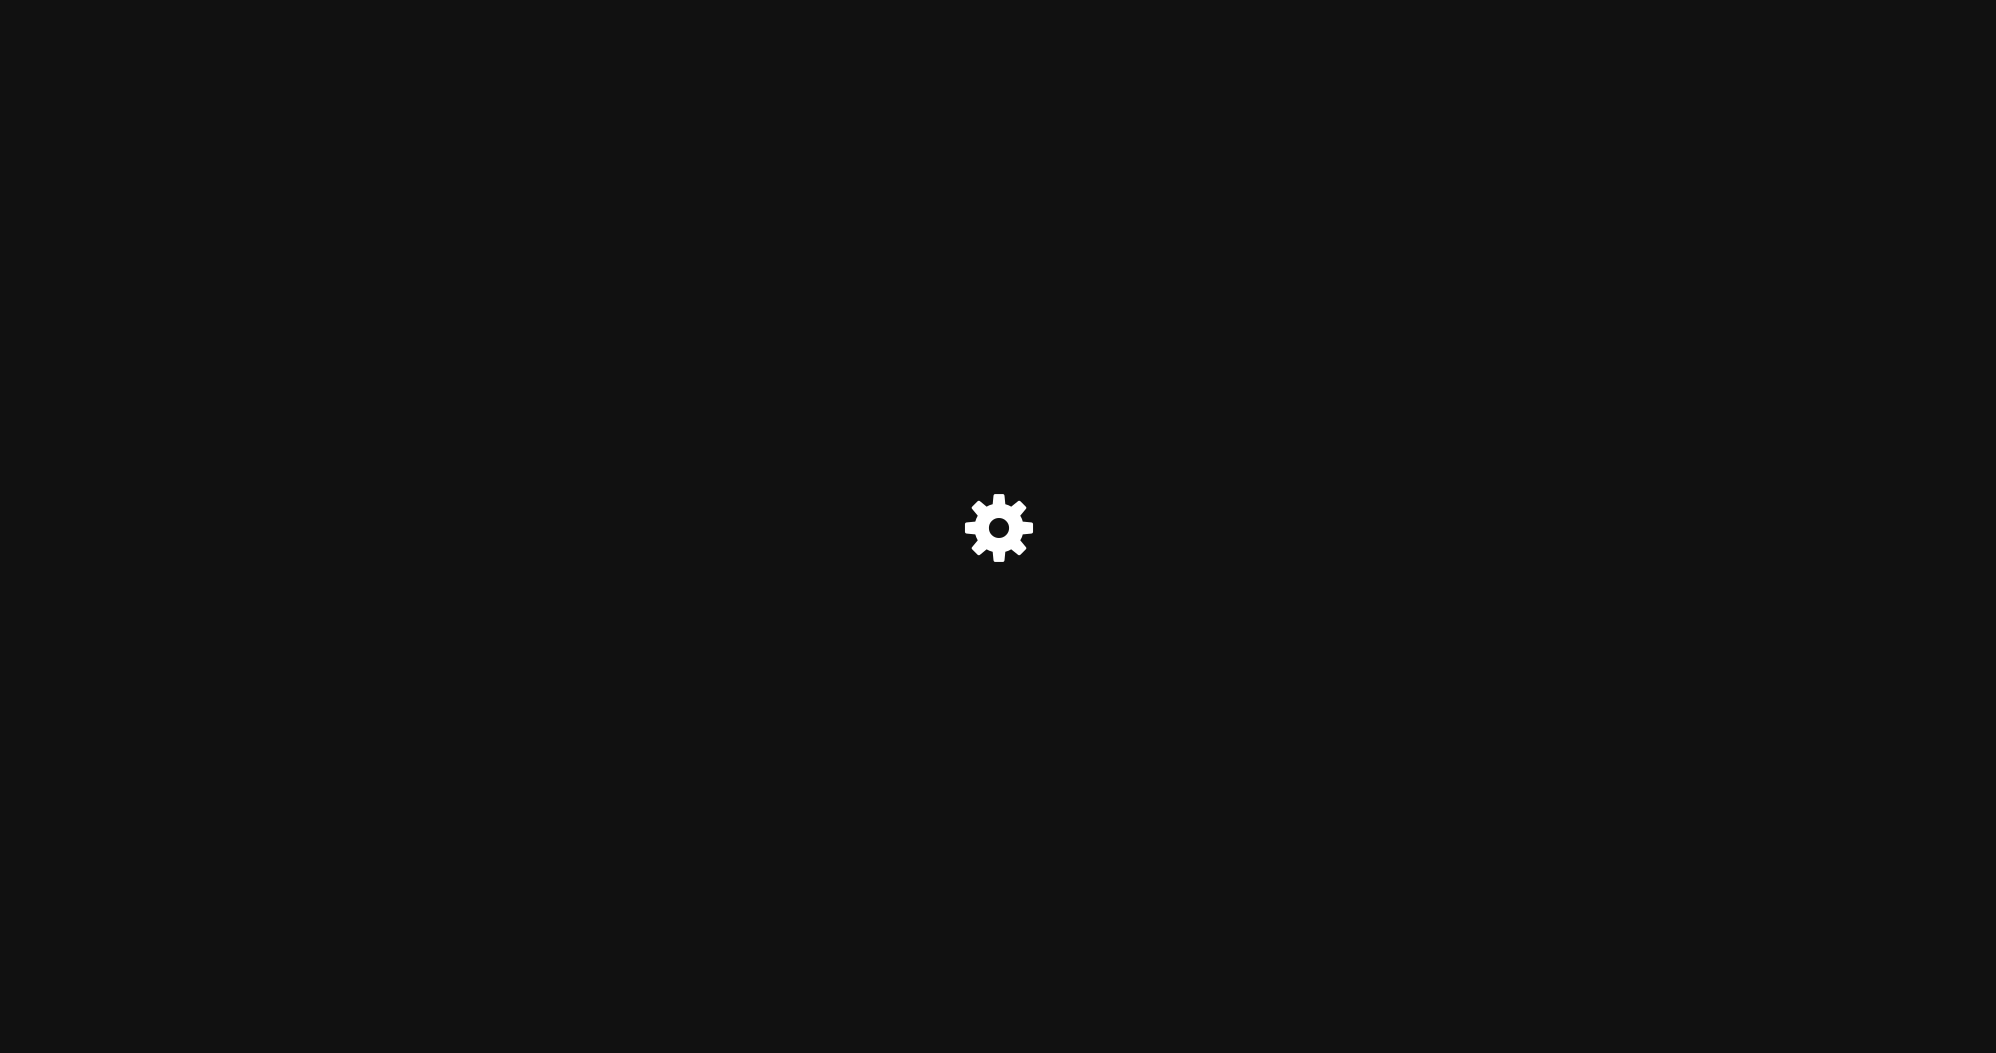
import math
import cairocffi as cairo

surface = cairo.ImageSurface(cairo.FORMAT_RGB24, 1996, 1053)
cr = cairo.Context(surface)
options = cairo.FontOptions()
options.set_hint_metrics(cairo.HINT_METRICS_OFF)
options.set_hint_style(cairo.HINT_STYLE_NONE)
cr.set_font_options(options)
cr.set_miter_limit(4)


def use_color(code):
    cr.set_source_rgb(*(v / 255 for v in bytes.fromhex(code[-6:])))


def picture(path, x, y, w, h):
    cr.save()
    cr.set_source_surface(cairo.ImageSurface.create_from_png(path), x, y)
    cr.rectangle(x, y, w, h)
    cr.fill()
    cr.restore()


use_color("#111111")
cr.paint()
picture("img1.png", 964, 494, 70, 68)
surface.write_to_png("result.png")
